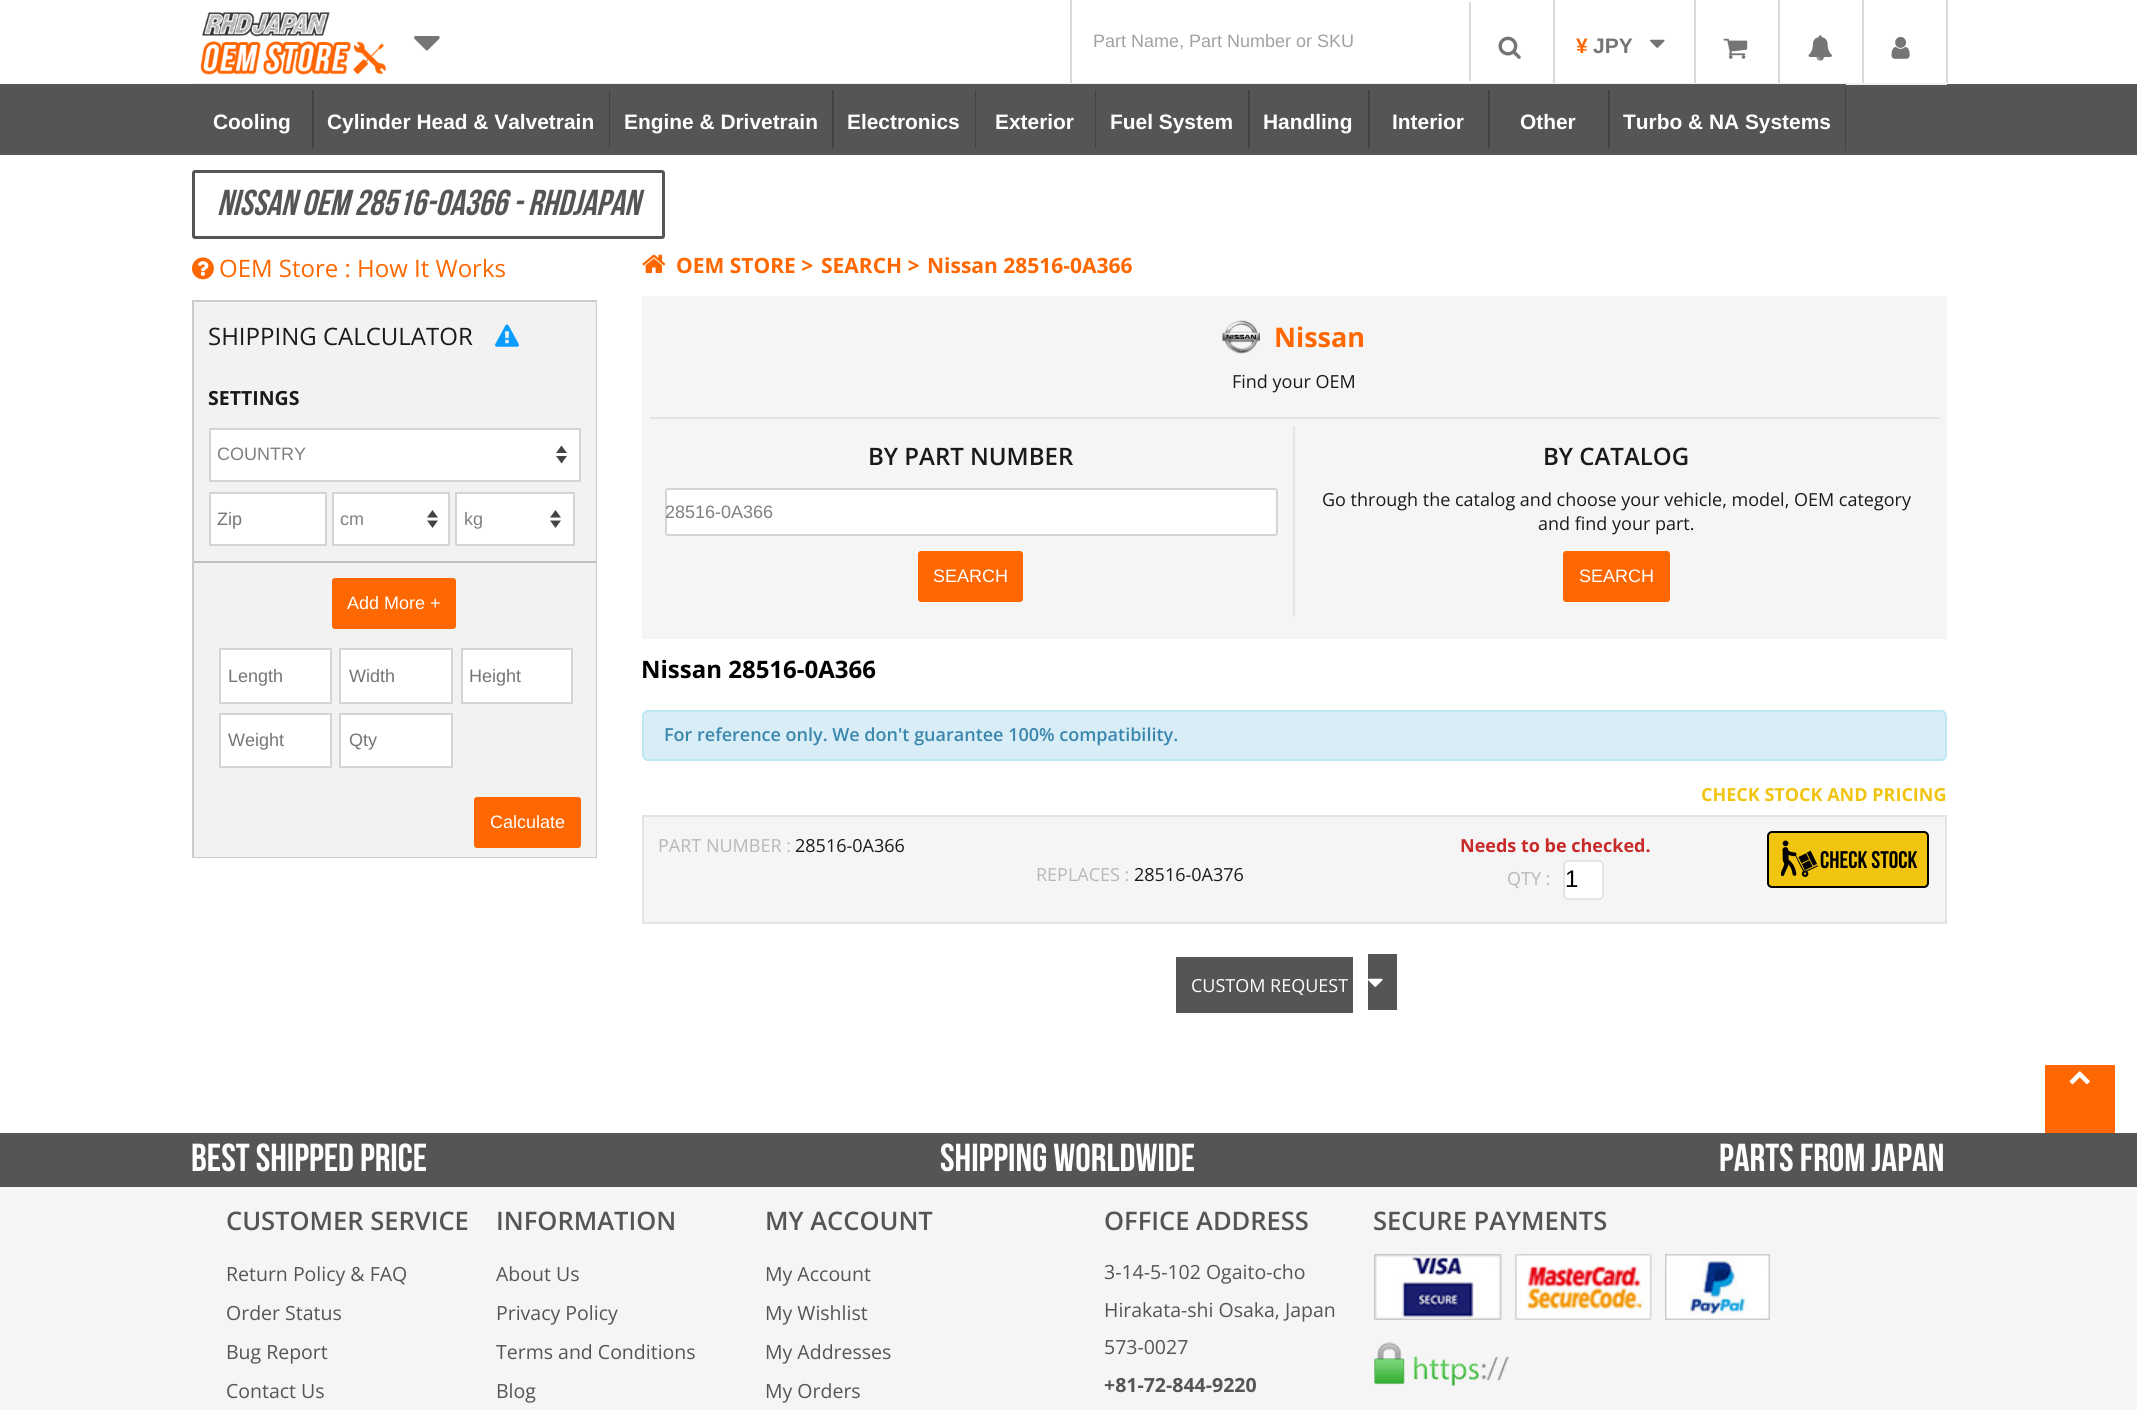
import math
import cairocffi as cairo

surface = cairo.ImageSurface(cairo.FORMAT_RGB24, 2137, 1410)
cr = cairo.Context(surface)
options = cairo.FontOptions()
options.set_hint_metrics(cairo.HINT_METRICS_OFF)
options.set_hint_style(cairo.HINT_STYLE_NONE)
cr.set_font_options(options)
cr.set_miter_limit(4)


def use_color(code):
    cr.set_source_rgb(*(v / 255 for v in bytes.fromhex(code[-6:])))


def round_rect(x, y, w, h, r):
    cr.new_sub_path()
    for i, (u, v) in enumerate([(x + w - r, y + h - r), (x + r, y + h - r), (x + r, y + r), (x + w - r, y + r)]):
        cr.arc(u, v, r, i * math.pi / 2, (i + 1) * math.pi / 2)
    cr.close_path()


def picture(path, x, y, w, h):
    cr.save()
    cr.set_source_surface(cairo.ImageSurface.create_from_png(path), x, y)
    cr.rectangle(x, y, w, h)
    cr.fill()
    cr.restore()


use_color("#ffffff")
cr.paint()
picture("img1.png", 200, 12, 187, 63)
picture("img2.png", 414, 36, 26, 15)
use_color("#555555")
cr.rectangle(0, 84, 2137, 71)
cr.fill()
use_color("#f1f1f1")
cr.rectangle(192, 83, 1755, 2)
cr.fill()
use_color("#d9d9d9")
cr.rectangle(1070, 0, 2, 83)
cr.fill()
cr.select_font_face("Liberation Sans")
cr.set_font_size(18)
use_color("#a2a2a2")
cr.move_to(1093, 47)
cr.show_text("Part Name, Part Number or SKU")
use_color("#d9d9d9")
cr.rectangle(1469, 2, 2, 79)
cr.fill()
picture("img3.png", 1498, 36, 23, 23)
cr.rectangle(1553, 0, 2, 83)
cr.fill()
cr.select_font_face("Liberation Sans", cairo.FONT_SLANT_NORMAL, cairo.FONT_WEIGHT_BOLD)
cr.set_font_size(21)
use_color("#ff6700")
cr.move_to(1576, 53)
cr.show_text("¥")
use_color("#757575")
cr.move_to(1593, 53)
cr.show_text("JPY")
picture("img4.png", 1650, 39, 15, 9)
use_color("#d9d9d9")
cr.rectangle(1694, 0, 2, 83)
cr.fill()
picture("img5.png", 1723, 38, 25, 21)
cr.rectangle(1778, 0, 2, 83)
cr.fill()
picture("img6.png", 1808, 35, 24, 26)
cr.rectangle(1946, 0, 2, 83)
cr.fill()
cr.rectangle(1862, 0, 2, 83)
cr.fill()
picture("img7.png", 1891, 37, 19, 22)
use_color("#555555")
cr.new_path()
cr.move_to(192, 84)
cr.line_to(314, 84)
cr.line_to(312, 90)
cr.line_to(192, 90)
cr.close_path()
cr.fill()
use_color("#424242")
cr.new_path()
cr.move_to(314, 84)
cr.line_to(314, 154)
cr.line_to(312, 148)
cr.line_to(312, 90)
cr.close_path()
cr.fill()
use_color("#555555")
cr.new_path()
cr.move_to(314, 154)
cr.line_to(192, 154)
cr.line_to(192, 148)
cr.line_to(312, 148)
cr.close_path()
cr.fill()
cr.set_font_size(20.9)
use_color("#ffffff")
cr.move_to(213, 129)
cr.show_text("Cooling")
use_color("#555555")
cr.new_path()
cr.move_to(312, 84)
cr.line_to(610, 84)
cr.line_to(609, 90)
cr.line_to(312, 90)
cr.close_path()
cr.fill()
use_color("#424242")
cr.new_path()
cr.move_to(610, 84)
cr.line_to(610, 154)
cr.line_to(609, 148)
cr.line_to(609, 90)
cr.close_path()
cr.fill()
use_color("#555555")
cr.new_path()
cr.move_to(610, 154)
cr.line_to(312, 154)
cr.line_to(312, 148)
cr.line_to(609, 148)
cr.close_path()
cr.fill()
use_color("#ffffff")
cr.move_to(327, 129)
cr.show_text("Cylinder Head & Valvetrain")
use_color("#555555")
cr.new_path()
cr.move_to(609, 84)
cr.line_to(834, 84)
cr.line_to(832, 90)
cr.line_to(609, 90)
cr.close_path()
cr.fill()
use_color("#424242")
cr.new_path()
cr.move_to(834, 84)
cr.line_to(834, 154)
cr.line_to(832, 148)
cr.line_to(832, 90)
cr.close_path()
cr.fill()
use_color("#555555")
cr.new_path()
cr.move_to(834, 154)
cr.line_to(609, 154)
cr.line_to(609, 148)
cr.line_to(832, 148)
cr.close_path()
cr.fill()
use_color("#ffffff")
cr.move_to(624, 129)
cr.show_text("Engine & Drivetrain")
use_color("#555555")
cr.new_path()
cr.move_to(832, 84)
cr.line_to(976, 84)
cr.line_to(975, 90)
cr.line_to(832, 90)
cr.close_path()
cr.fill()
use_color("#424242")
cr.new_path()
cr.move_to(976, 84)
cr.line_to(976, 154)
cr.line_to(975, 148)
cr.line_to(975, 90)
cr.close_path()
cr.fill()
use_color("#555555")
cr.new_path()
cr.move_to(976, 154)
cr.line_to(832, 154)
cr.line_to(832, 148)
cr.line_to(975, 148)
cr.close_path()
cr.fill()
use_color("#ffffff")
cr.move_to(847, 129)
cr.show_text("Electronics")
use_color("#555555")
cr.new_path()
cr.move_to(975, 84)
cr.line_to(1096, 84)
cr.line_to(1095, 90)
cr.line_to(975, 90)
cr.close_path()
cr.fill()
use_color("#424242")
cr.new_path()
cr.move_to(1096, 84)
cr.line_to(1096, 154)
cr.line_to(1095, 148)
cr.line_to(1095, 90)
cr.close_path()
cr.fill()
use_color("#555555")
cr.new_path()
cr.move_to(1096, 154)
cr.line_to(975, 154)
cr.line_to(975, 148)
cr.line_to(1095, 148)
cr.close_path()
cr.fill()
use_color("#ffffff")
cr.move_to(995, 129)
cr.show_text("Exterior")
use_color("#555555")
cr.new_path()
cr.move_to(1095, 84)
cr.line_to(1250, 84)
cr.line_to(1248, 90)
cr.line_to(1095, 90)
cr.close_path()
cr.fill()
use_color("#424242")
cr.new_path()
cr.move_to(1250, 84)
cr.line_to(1250, 154)
cr.line_to(1248, 148)
cr.line_to(1248, 90)
cr.close_path()
cr.fill()
use_color("#555555")
cr.new_path()
cr.move_to(1250, 154)
cr.line_to(1095, 154)
cr.line_to(1095, 148)
cr.line_to(1248, 148)
cr.close_path()
cr.fill()
use_color("#ffffff")
cr.move_to(1110, 129)
cr.show_text("Fuel System")
use_color("#555555")
cr.new_path()
cr.move_to(1248, 84)
cr.line_to(1370, 84)
cr.line_to(1368, 90)
cr.line_to(1248, 90)
cr.close_path()
cr.fill()
use_color("#424242")
cr.new_path()
cr.move_to(1370, 84)
cr.line_to(1370, 154)
cr.line_to(1368, 148)
cr.line_to(1368, 90)
cr.close_path()
cr.fill()
use_color("#555555")
cr.new_path()
cr.move_to(1370, 154)
cr.line_to(1248, 154)
cr.line_to(1248, 148)
cr.line_to(1368, 148)
cr.close_path()
cr.fill()
use_color("#ffffff")
cr.move_to(1263, 129)
cr.show_text("Handling")
use_color("#555555")
cr.new_path()
cr.move_to(1368, 84)
cr.line_to(1490, 84)
cr.line_to(1488, 90)
cr.line_to(1368, 90)
cr.close_path()
cr.fill()
use_color("#424242")
cr.new_path()
cr.move_to(1490, 84)
cr.line_to(1490, 154)
cr.line_to(1488, 148)
cr.line_to(1488, 90)
cr.close_path()
cr.fill()
use_color("#555555")
cr.new_path()
cr.move_to(1490, 154)
cr.line_to(1368, 154)
cr.line_to(1368, 148)
cr.line_to(1488, 148)
cr.close_path()
cr.fill()
use_color("#ffffff")
cr.move_to(1392, 129)
cr.show_text("Interior")
use_color("#555555")
cr.new_path()
cr.move_to(1488, 84)
cr.line_to(1610, 84)
cr.line_to(1608, 90)
cr.line_to(1488, 90)
cr.close_path()
cr.fill()
use_color("#424242")
cr.new_path()
cr.move_to(1610, 84)
cr.line_to(1610, 154)
cr.line_to(1608, 148)
cr.line_to(1608, 90)
cr.close_path()
cr.fill()
use_color("#555555")
cr.new_path()
cr.move_to(1610, 154)
cr.line_to(1488, 154)
cr.line_to(1488, 148)
cr.line_to(1608, 148)
cr.close_path()
cr.fill()
use_color("#ffffff")
cr.move_to(1520, 129)
cr.show_text("Other")
use_color("#555555")
cr.new_path()
cr.move_to(1608, 84)
cr.line_to(1846, 84)
cr.line_to(1845, 90)
cr.line_to(1608, 90)
cr.close_path()
cr.fill()
use_color("#424242")
cr.new_path()
cr.move_to(1846, 84)
cr.line_to(1846, 154)
cr.line_to(1845, 148)
cr.line_to(1845, 90)
cr.close_path()
cr.fill()
use_color("#555555")
cr.new_path()
cr.move_to(1846, 154)
cr.line_to(1608, 154)
cr.line_to(1608, 148)
cr.line_to(1845, 148)
cr.close_path()
cr.fill()
use_color("#ffffff")
cr.move_to(1623, 129)
cr.show_text("Turbo & NA Systems")
round_rect(193.5, 171.5, 470, 66, 1.5)
use_color("#555555")
cr.set_line_width(3)
cr.stroke()
cr.select_font_face("Bebas Neue", cairo.FONT_SLANT_ITALIC)
cr.set_font_size(36)
cr.move_to(217, 215)
cr.show_text("NISSAN OEM 28516-0A366 - RHDJAPAN")
picture("img8.png", 192, 257, 22, 23)
cr.select_font_face("Open Sans")
cr.set_font_size(24)
use_color("#ff6700")
cr.move_to(219, 277)
cr.show_text("OEM Store : How It Works")
cr.rectangle(193, 301, 403, 556)
use_color("#cccccc")
cr.set_line_width(2)
cr.stroke()
use_color("#f2f2f2")
cr.rectangle(194, 302, 402, 555)
cr.fill()
use_color("#191a19")
cr.move_to(208, 345)
cr.show_text("SHIPPING CALCULATOR")
picture("img9.png", 495, 324, 24, 23)
use_color("#bfbfbf")
cr.rectangle(194, 561, 402, 2)
cr.fill()
cr.select_font_face("Open Sans", cairo.FONT_SLANT_NORMAL, cairo.FONT_WEIGHT_BOLD)
cr.set_font_size(19.5)
use_color("#191a19")
cr.move_to(208, 405)
cr.show_text("SETTINGS")
use_color("#ffffff")
cr.rectangle(211, 430, 368, 50)
cr.fill()
use_color("#444444")
cr.new_path()
cr.move_to(556, 453)
cr.line_to(561.5, 445.5)
cr.line_to(567, 453)
cr.close_path()
cr.move_to(567, 456)
cr.line_to(561.5, 463.5)
cr.line_to(556, 456)
cr.close_path()
cr.fill()
cr.rectangle(210, 429, 370, 52)
use_color("#d4d4d4")
cr.stroke()
cr.save()
cr.rectangle(218, 444, 334, 21)
cr.clip()
cr.select_font_face("Liberation Sans")
cr.set_font_size(18)
use_color("#808080")
cr.move_to(217, 460)
cr.show_text("COUNTRY")
cr.restore()
use_color("#ffffff")
cr.rectangle(210, 493, 116, 52)
cr.fill_preserve()
use_color("#d4d4d4")
cr.stroke()
cr.select_font_face("Liberation Sans")
cr.set_font_size(18)
use_color("#757575")
cr.move_to(217, 525)
cr.show_text("Zip")
use_color("#ffffff")
cr.rectangle(334, 494, 114, 50)
cr.fill()
use_color("#444444")
cr.new_path()
cr.move_to(427, 517.5)
cr.line_to(432.5, 510)
cr.line_to(438, 517.5)
cr.close_path()
cr.move_to(438, 520.5)
cr.line_to(432.5, 528)
cr.line_to(427, 520.5)
cr.close_path()
cr.fill()
cr.rectangle(333, 493, 116, 52)
use_color("#d4d4d4")
cr.stroke()
use_color("#808080")
cr.move_to(340, 525)
cr.show_text("cm")
use_color("#ffffff")
cr.rectangle(457, 494, 116, 50)
cr.fill()
use_color("#444444")
cr.new_path()
cr.move_to(550, 517.5)
cr.line_to(555.5, 510)
cr.line_to(561, 517.5)
cr.close_path()
cr.move_to(561, 520.5)
cr.line_to(555.5, 528)
cr.line_to(550, 520.5)
cr.close_path()
cr.fill()
cr.rectangle(456, 493, 118, 52)
use_color("#d4d4d4")
cr.stroke()
use_color("#808080")
cr.move_to(464, 525)
cr.show_text("kg")
use_color("#ff6700")
round_rect(332, 578, 124, 51, 3)
cr.fill()
use_color("#ffffff")
cr.move_to(347, 609)
cr.show_text("Add More +")
cr.rectangle(220, 649, 111, 54)
cr.fill_preserve()
use_color("#d4d4d4")
cr.stroke()
use_color("#757575")
cr.move_to(228, 682)
cr.show_text("Length")
use_color("#ffffff")
cr.rectangle(340, 649, 112, 54)
cr.fill_preserve()
use_color("#d4d4d4")
cr.stroke()
use_color("#757575")
cr.move_to(349, 682)
cr.show_text("Width")
use_color("#ffffff")
cr.rectangle(462, 649, 110, 54)
cr.fill_preserve()
use_color("#d4d4d4")
cr.stroke()
use_color("#757575")
cr.move_to(469, 682)
cr.show_text("Height")
use_color("#ffffff")
cr.rectangle(220, 714, 111, 53)
cr.fill_preserve()
use_color("#d4d4d4")
cr.stroke()
use_color("#757575")
cr.move_to(228, 746)
cr.show_text("Weight")
use_color("#ffffff")
cr.rectangle(340, 714, 112, 53)
cr.fill_preserve()
use_color("#d4d4d4")
cr.stroke()
use_color("#757575")
cr.move_to(349, 746)
cr.show_text("Qty")
use_color("#ff6700")
round_rect(474, 797, 107, 51, 3)
cr.fill()
use_color("#ffffff")
cr.move_to(490, 828)
cr.show_text("Calculate")
picture("img10.png", 642, 254, 24, 19)
cr.select_font_face("Open Sans", cairo.FONT_SLANT_NORMAL, cairo.FONT_WEIGHT_BOLD)
cr.set_font_size(21)
use_color("#ff6700")
cr.move_to(676, 273)
cr.show_text("OEM STORE >")
cr.move_to(821, 273)
cr.show_text("SEARCH >")
cr.move_to(927, 273)
cr.show_text("Nissan 28516-0A366")
use_color("#f5f5f5")
cr.rectangle(642, 296, 1305, 343)
cr.fill()
use_color("#e4e4e4")
cr.rectangle(650, 417, 1290, 2)
cr.fill()
picture("img11.png", 1222, 320, 38, 34)
cr.set_font_size(27)
use_color("#ff6700")
cr.move_to(1274, 347)
cr.show_text("Nissan")
cr.select_font_face("Open Sans")
cr.set_font_size(18)
use_color("#191a19")
cr.move_to(1232, 388)
cr.show_text("Find your OEM")
use_color("#e4e4e4")
cr.rectangle(1293, 426, 2, 191)
cr.fill()
cr.select_font_face("Open Sans SemiBold")
cr.set_font_size(24)
use_color("#191a19")
cr.move_to(868, 465)
cr.show_text("BY PART NUMBER")
use_color("#ffffff")
round_rect(666, 489, 611, 46, 2)
cr.fill_preserve()
use_color("#d4d4d4")
cr.stroke()
cr.select_font_face("Liberation Sans")
cr.set_font_size(18)
use_color("#808080")
cr.move_to(665, 518)
cr.show_text("28516-0A366")
use_color("#ff6700")
round_rect(918, 551, 105, 51, 3)
cr.fill()
use_color("#ffffff")
cr.move_to(933, 582)
cr.show_text("SEARCH")
cr.select_font_face("Open Sans SemiBold")
cr.set_font_size(24)
use_color("#191a19")
cr.move_to(1543, 465)
cr.show_text("BY CATALOG")
cr.select_font_face("Open Sans")
cr.set_font_size(18)
cr.move_to(1322, 506)
cr.show_text("Go through the catalog and choose your vehicle, model, OEM category")
cr.move_to(1538, 530)
cr.show_text("and find your part.")
use_color("#ff6700")
round_rect(1563, 551, 107, 51, 3)
cr.fill()
cr.select_font_face("Liberation Sans")
use_color("#ffffff")
cr.move_to(1579, 582)
cr.show_text("SEARCH")
cr.select_font_face("Open Sans", cairo.FONT_SLANT_NORMAL, cairo.FONT_WEIGHT_BOLD)
cr.set_font_size(24)
use_color("#000000")
cr.move_to(641, 678)
cr.show_text("Nissan 28516-0A366")
use_color("#d9edf7")
round_rect(643, 711, 1303, 49, 5)
cr.fill_preserve()
use_color("#bce8f1")
cr.stroke()
cr.select_font_face("Open Sans SemiBold")
cr.set_font_size(18)
use_color("#3a87ad")
cr.move_to(664, 741)
cr.show_text("For reference only. We don't guarantee 100% compatibility.")
cr.select_font_face("Open Sans", cairo.FONT_SLANT_NORMAL, cairo.FONT_WEIGHT_BOLD)
use_color("#f1c40f")
cr.move_to(1701, 801)
cr.show_text("CHECK STOCK AND PRICING")
use_color("#f5f5f5")
cr.rectangle(643, 816, 1303, 107)
cr.fill_preserve()
use_color("#e6e3e3")
cr.stroke()
cr.select_font_face("Open Sans")
use_color("#b7b7b7")
cr.move_to(658, 852)
cr.show_text("PART NUMBER :")
use_color("#191a19")
cr.move_to(795, 852)
cr.show_text("28516-0A366")
use_color("#b7b7b7")
cr.move_to(1036, 881)
cr.show_text("REPLACES :")
use_color("#191a19")
cr.move_to(1134, 881)
cr.show_text("28516-0A376")
cr.select_font_face("Open Sans", cairo.FONT_SLANT_NORMAL, cairo.FONT_WEIGHT_BOLD)
use_color("#c82929")
cr.move_to(1460, 852)
cr.show_text("Needs to be checked.")
cr.select_font_face("Open Sans")
use_color("#b7b7b7")
cr.move_to(1507, 885)
cr.show_text("QTY :")
use_color("#ffffff")
round_rect(1564, 861, 39, 38, 4)
cr.fill_preserve()
use_color("#e6e3e3")
cr.stroke()
cr.select_font_face("Liberation Sans")
cr.set_font_size(24)
use_color("#000000")
cr.move_to(1565, 887)
cr.show_text("1")
use_color("#f1c40f")
round_rect(1768, 832, 160, 55, 4)
cr.fill_preserve()
use_color("#000000")
cr.stroke()
picture("img12.png", 1781, 840, 37, 37)
cr.select_font_face("Bebas Neue")
cr.move_to(1820, 868)
cr.show_text("CHECK STOCK")
use_color("#555555")
cr.rectangle(1176, 957, 177, 56)
cr.fill()
cr.rectangle(1368, 954, 29, 56)
cr.fill()
cr.select_font_face("Open Sans")
cr.set_font_size(18)
use_color("#ffffff")
cr.move_to(1191, 992)
cr.show_text("CUSTOM REQUEST")
picture("img13.png", 1368, 978, 15, 9)
use_color("#ff6700")
cr.rectangle(2045, 1065, 70, 68)
cr.fill()
picture("img14.png", 2069, 1071, 21, 14)
use_color("#555555")
cr.rectangle(0, 1133, 2137, 54)
cr.fill()
cr.select_font_face("Bebas Neue")
cr.set_font_size(39)
use_color("#ffffff")
cr.move_to(191, 1171)
cr.show_text("best shipped price")
cr.move_to(940, 1171)
cr.show_text("shipping worldwide")
cr.move_to(1719, 1171)
cr.show_text("parts from japan")
use_color("#f5f5f5")
cr.rectangle(0, 1187, 2137, 223)
cr.fill()
cr.select_font_face("Open Sans SemiBold")
cr.set_font_size(25.5)
use_color("#555555")
cr.move_to(226, 1230)
cr.show_text("CUSTOMER SERVICE")
cr.select_font_face("Open Sans")
cr.set_font_size(19.5)
cr.move_to(226, 1281)
cr.show_text("Return Policy & FAQ")
cr.move_to(226, 1320)
cr.show_text("Order Status")
cr.move_to(226, 1359)
cr.show_text("Bug Report")
cr.move_to(226, 1398)
cr.show_text("Contact Us")
cr.select_font_face("Open Sans SemiBold")
cr.set_font_size(25.5)
cr.move_to(496, 1230)
cr.show_text("INFORMATION")
cr.select_font_face("Open Sans")
cr.set_font_size(19.5)
cr.move_to(496, 1281)
cr.show_text("About Us")
cr.move_to(496, 1320)
cr.show_text("Privacy Policy")
cr.move_to(496, 1359)
cr.show_text("Terms and Conditions")
cr.move_to(496, 1398)
cr.show_text("Blog")
cr.select_font_face("Open Sans SemiBold")
cr.set_font_size(25.5)
cr.move_to(765, 1230)
cr.show_text("MY ACCOUNT")
cr.select_font_face("Open Sans")
cr.set_font_size(19.5)
cr.move_to(765, 1281)
cr.show_text("My Account")
cr.move_to(765, 1320)
cr.show_text("My Wishlist")
cr.move_to(765, 1359)
cr.show_text("My Addresses")
cr.move_to(765, 1398)
cr.show_text("My Orders")
cr.select_font_face("Open Sans SemiBold")
cr.set_font_size(25.5)
cr.move_to(1104, 1230)
cr.show_text("OFFICE ADDRESS")
cr.select_font_face("Open Sans")
cr.set_font_size(19.5)
cr.move_to(1104, 1279)
cr.show_text("3-14-5-102 Ogaito-cho")
cr.move_to(1104, 1317)
cr.show_text("Hirakata-shi Osaka, Japan")
cr.move_to(1104, 1354)
cr.show_text("573-0027")
cr.select_font_face("Open Sans", cairo.FONT_SLANT_NORMAL, cairo.FONT_WEIGHT_BOLD)
cr.move_to(1104, 1392)
cr.show_text("+81-72-844-9220")
cr.select_font_face("Open Sans SemiBold")
cr.set_font_size(25.5)
cr.move_to(1373, 1230)
cr.show_text("SECURE PAYMENTS")
picture("img15.png", 1374, 1254, 128, 66)
picture("img16.png", 1515, 1254, 137, 66)
picture("img17.png", 1665, 1254, 105, 66)
picture("img18.png", 1374, 1342, 135, 44)
surface.write_to_png("result.png")
